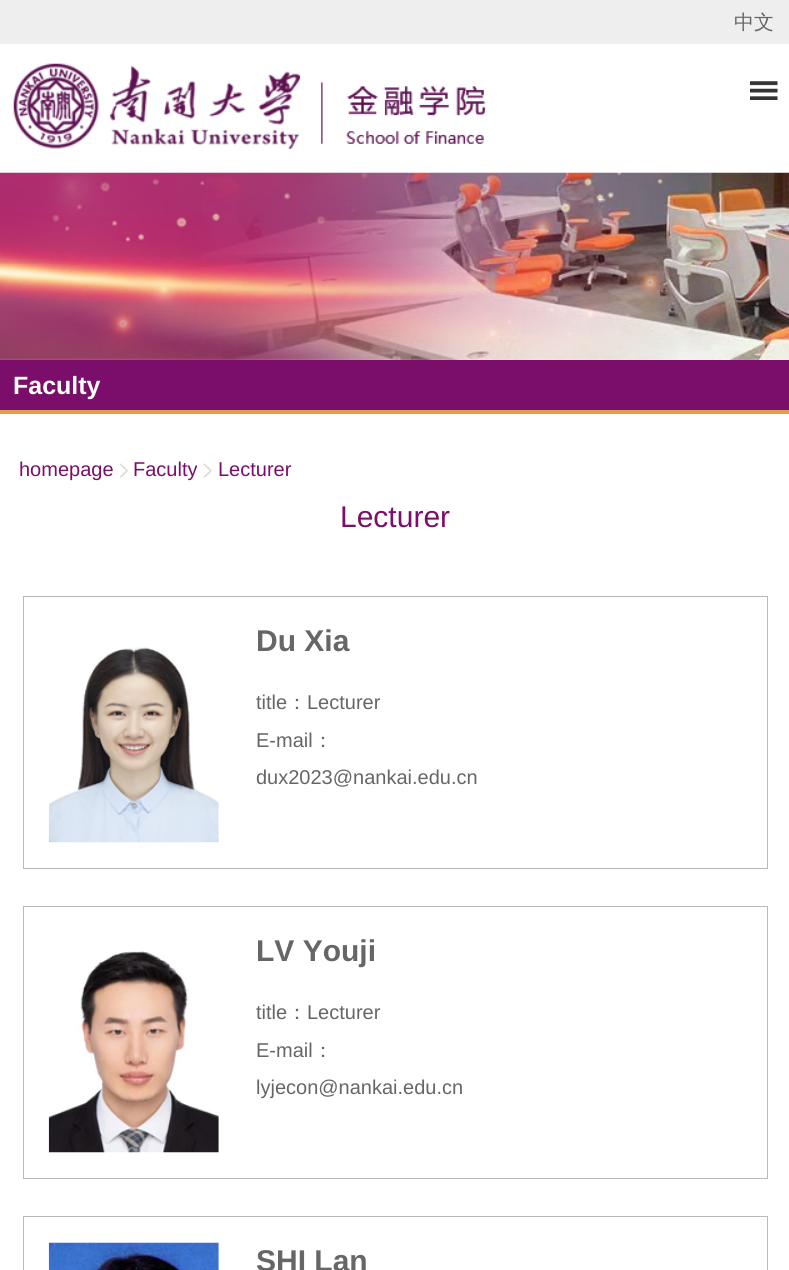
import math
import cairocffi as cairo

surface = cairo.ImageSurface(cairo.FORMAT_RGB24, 789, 1270)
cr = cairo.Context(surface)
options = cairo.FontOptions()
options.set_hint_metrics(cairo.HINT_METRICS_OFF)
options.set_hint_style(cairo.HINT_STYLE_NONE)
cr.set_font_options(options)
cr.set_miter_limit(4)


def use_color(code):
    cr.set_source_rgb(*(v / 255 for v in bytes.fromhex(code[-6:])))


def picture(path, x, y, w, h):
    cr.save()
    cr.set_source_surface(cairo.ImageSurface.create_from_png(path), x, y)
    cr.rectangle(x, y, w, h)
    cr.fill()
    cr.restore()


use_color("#ffffff")
cr.paint()
use_color("#eeeeee")
cr.rectangle(0, 0, 789, 44)
cr.fill()
cr.select_font_face("WenQuanYi Zen Hei Medium")
cr.set_font_size(20)
use_color("#666666")
cr.move_to(734, 29)
cr.show_text("中文")
picture("img1.png", 13, 63, 288, 86)
picture("img2.png", 321, 82, 165, 62)
picture("img3.png", 750, 81, 28, 19)
picture("img4.png", 0, 172, 789, 188)
use_color("#7b0e6b")
cr.rectangle(0, 360, 789, 50)
cr.fill()
use_color("#e09f51")
cr.rectangle(0, 410, 789, 4)
cr.fill()
cr.select_font_face("Liberation Sans", cairo.FONT_SLANT_NORMAL, cairo.FONT_WEIGHT_BOLD)
cr.set_font_size(25)
use_color("#ffffff")
cr.move_to(13, 394)
cr.show_text("Faculty")
cr.select_font_face("Liberation Sans")
cr.set_font_size(20)
use_color("#7b0e6b")
cr.move_to(19, 476)
cr.show_text("homepage")
picture("img5.png", 120, 463, 8, 15)
cr.move_to(133, 476)
cr.show_text("Faculty")
picture("img6.png", 203, 463, 9, 15)
cr.move_to(218, 476)
cr.show_text("Lecturer")
cr.set_font_size(30)
cr.move_to(340, 527)
cr.show_text("Lecturer")
cr.rectangle(23.5, 596.5, 744, 272)
use_color("#bab9b9")
cr.set_line_width(1)
cr.stroke()
picture("img7.png", 48, 647, 171, 196)
cr.select_font_face("Liberation Sans", cairo.FONT_SLANT_NORMAL, cairo.FONT_WEIGHT_BOLD)
use_color("#666666")
cr.move_to(256, 651)
cr.show_text("Du Xia")
cr.select_font_face("Liberation Sans")
cr.set_font_size(20)
cr.move_to(256, 709)
cr.show_text("title")
cr.select_font_face("WenQuanYi Zen Hei Medium")
cr.move_to(287, 709)
cr.show_text("：")
cr.select_font_face("Liberation Sans")
cr.move_to(307, 709)
cr.show_text("Lecturer")
cr.move_to(256, 747)
cr.show_text("E-mail")
cr.select_font_face("WenQuanYi Zen Hei Medium")
cr.move_to(313, 747)
cr.show_text("：")
cr.select_font_face("Liberation Sans")
cr.move_to(256, 784)
cr.show_text("dux2023@nankai.edu.cn")
cr.rectangle(23.5, 906.5, 744, 272)
use_color("#bab9b9")
cr.stroke()
picture("img8.png", 48, 951, 171, 202)
cr.select_font_face("Liberation Sans", cairo.FONT_SLANT_NORMAL, cairo.FONT_WEIGHT_BOLD)
cr.set_font_size(30)
use_color("#666666")
cr.move_to(256, 961)
cr.show_text("LV Youji")
cr.select_font_face("Liberation Sans")
cr.set_font_size(20)
cr.move_to(256, 1019)
cr.show_text("title")
cr.select_font_face("WenQuanYi Zen Hei Medium")
cr.move_to(287, 1019)
cr.show_text("：")
cr.select_font_face("Liberation Sans")
cr.move_to(307, 1019)
cr.show_text("Lecturer")
cr.move_to(256, 1057)
cr.show_text("E-mail")
cr.select_font_face("WenQuanYi Zen Hei Medium")
cr.move_to(313, 1057)
cr.show_text("：")
cr.select_font_face("Liberation Sans")
cr.move_to(256, 1094)
cr.show_text("lyjecon@nankai.edu.cn")
cr.rectangle(23.5, 1216.5, 744, 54)
use_color("#bab9b9")
cr.stroke()
picture("img9.png", 48, 1242, 171, 28)
cr.select_font_face("Liberation Sans", cairo.FONT_SLANT_NORMAL, cairo.FONT_WEIGHT_BOLD)
cr.set_font_size(30)
use_color("#666666")
cr.move_to(256, 1271)
cr.show_text("SHI Lan")
surface.write_to_png("result.png")
